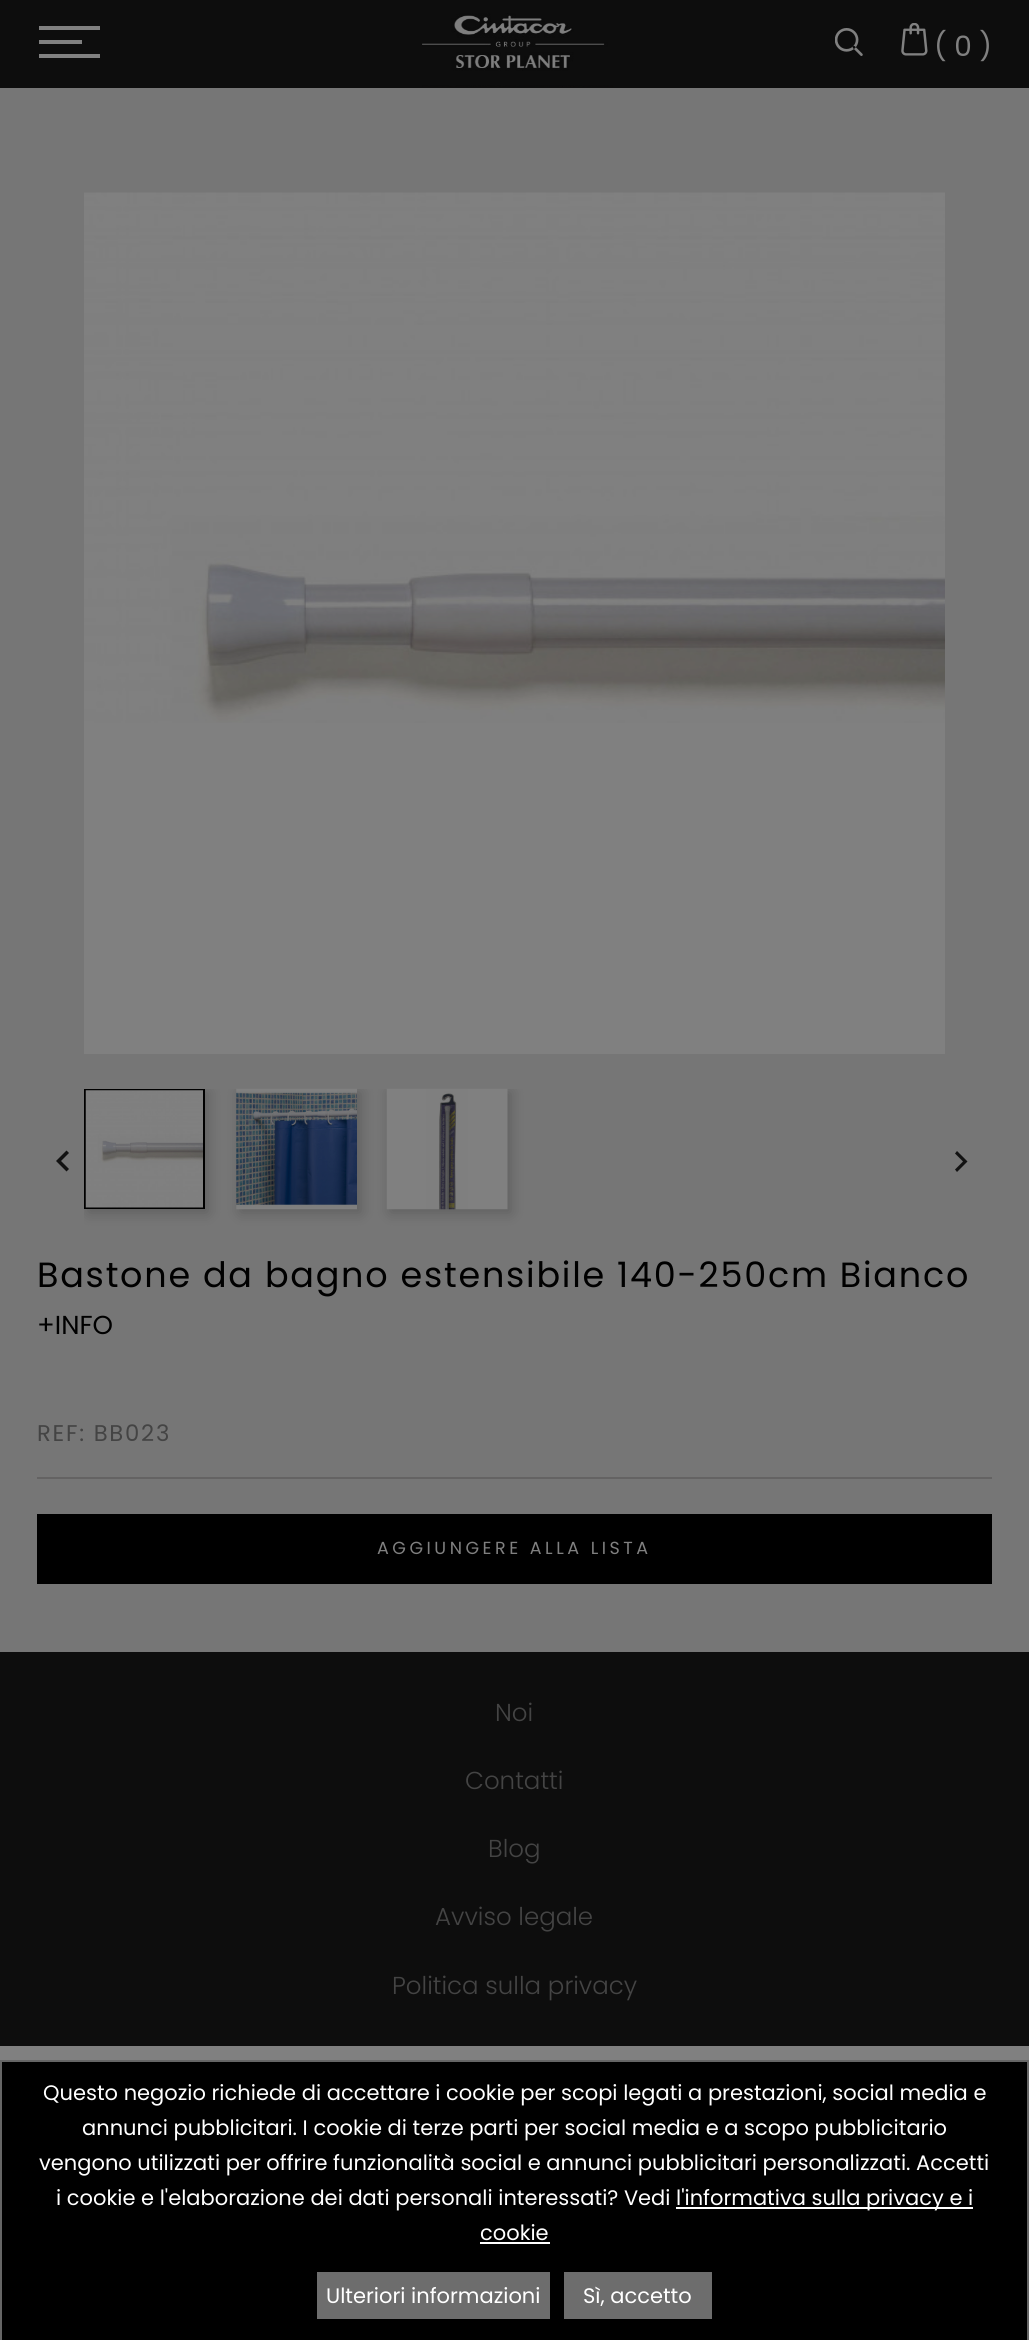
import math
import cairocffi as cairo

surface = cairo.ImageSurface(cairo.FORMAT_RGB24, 1029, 2340)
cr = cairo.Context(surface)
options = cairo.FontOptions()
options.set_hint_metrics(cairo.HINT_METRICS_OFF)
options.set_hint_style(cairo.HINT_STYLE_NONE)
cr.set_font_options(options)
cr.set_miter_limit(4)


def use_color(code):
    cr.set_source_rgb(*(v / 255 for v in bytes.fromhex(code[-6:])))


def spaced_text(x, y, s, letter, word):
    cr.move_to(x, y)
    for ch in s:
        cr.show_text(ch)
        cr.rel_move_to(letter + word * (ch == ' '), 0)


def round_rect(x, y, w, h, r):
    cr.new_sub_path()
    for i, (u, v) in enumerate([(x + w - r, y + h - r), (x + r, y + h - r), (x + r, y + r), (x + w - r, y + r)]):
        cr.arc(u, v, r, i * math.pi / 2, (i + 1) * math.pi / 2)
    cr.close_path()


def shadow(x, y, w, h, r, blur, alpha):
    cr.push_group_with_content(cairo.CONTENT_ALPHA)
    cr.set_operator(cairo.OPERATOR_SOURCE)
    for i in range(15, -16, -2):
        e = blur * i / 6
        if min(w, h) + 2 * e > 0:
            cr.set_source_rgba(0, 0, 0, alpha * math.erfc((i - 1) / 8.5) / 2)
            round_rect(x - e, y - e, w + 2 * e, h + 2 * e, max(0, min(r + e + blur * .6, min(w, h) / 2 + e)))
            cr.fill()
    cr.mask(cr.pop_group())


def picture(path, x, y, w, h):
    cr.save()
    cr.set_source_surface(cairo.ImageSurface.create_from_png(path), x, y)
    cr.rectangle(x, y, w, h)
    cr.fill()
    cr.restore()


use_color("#767676")
cr.paint()
use_color("#0d0d0d")
cr.rectangle(0, 0, 1029, 88)
cr.fill()
use_color("#808080")
cr.rectangle(39, 26, 61, 4)
cr.fill()
cr.rectangle(39, 40, 43, 4)
cr.fill()
cr.rectangle(39, 54, 61, 4)
cr.fill()
picture("img1.png", 422, 13, 192, 74)
picture("img2.png", 835, 28, 28, 28)
picture("img3.png", 901, 23, 27, 33)
cr.select_font_face("Poppins")
cr.set_font_size(28)
cr.move_to(934, 56)
cr.show_text("( 0 )")
picture("img4.png", 84, 192, 861, 531)
cr.rectangle(84, 723, 861, 331)
cr.fill()
cr.save()
cr.rectangle(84, 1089, 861, 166)
cr.clip()
use_color("#000000")
shadow(88, 1092, 120, 121, 0, 7, 0.2)
shadow(240, 1092, 121, 121, 0, 7, 0.2)
shadow(390, 1092, 121, 121, 0, 7, 0.2)
cr.restore()
cr.rectangle(85, 1090, 119, 118)
use_color("#000000")
cr.stroke()
picture("img5.png", 236, 1088, 121, 122)
picture("img6.png", 386, 1088, 122, 122)
picture("img7.png", 85, 1090, 118, 118)
use_color("#121212")
cr.new_path()
cr.move_to(69, 1169)
cr.line_to(66.5, 1171.5)
cr.line_to(56, 1161)
cr.line_to(66.5, 1150.5)
cr.line_to(69, 1153)
cr.line_to(61, 1161)
cr.close_path()
cr.fill()
cr.new_path()
cr.move_to(955, 1169.5)
cr.line_to(963, 1161.5)
cr.line_to(955, 1153.5)
cr.line_to(957, 1151)
cr.line_to(967.5, 1161.5)
cr.line_to(957, 1172)
cr.close_path()
cr.fill()
cr.set_font_size(35)
use_color("#000000")
spaced_text(37, 1287, "Bastone da bagno estensibile 140-250cm Bianco", 1.75, 0)
cr.set_font_size(26)
cr.move_to(37, 1334)
cr.show_text("+INFO")
use_color("#646363")
cr.rectangle(37, 1477, 955, 2)
cr.fill()
cr.set_font_size(22.75)
use_color("#444444")
spaced_text(37, 1441, "REF: BB023", 1.75, 0)
use_color("#000000")
cr.rectangle(37, 1514, 955, 70)
cr.fill()
cr.set_font_size(17.5)
use_color("#808080")
spaced_text(377, 1554, "AGGIUNGERE ALLA LISTA", 3.5, 0)
use_color("#0d0d0d")
cr.rectangle(0, 1652, 1029, 394)
cr.fill()
cr.select_font_face("Poppins Light")
cr.set_font_size(24.5)
use_color("#444444")
cr.move_to(495, 1721)
cr.show_text("Noi")
cr.move_to(465, 1789)
cr.show_text("Contatti")
cr.move_to(488, 1857)
cr.show_text("Blog")
cr.move_to(435, 1925)
cr.show_text("Avviso legale")
cr.move_to(392, 1994)
cr.show_text("Politica sulla privacy")
cr.rectangle(1, 2061, 1027, 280)
use_color("#666666")
cr.stroke()
use_color("#000000")
cr.rectangle(2, 2062, 1025, 278)
cr.fill()
cr.select_font_face("Poppins")
cr.set_font_size(21)
use_color("#ffffff")
cr.move_to(43, 2100)
cr.show_text("Questo negozio richiede di accettare i cookie per scopi legati a prestazioni, social media e")
cr.move_to(82, 2135)
cr.show_text("annunci pubblicitari. I cookie di terze parti per social media e a scopo pubblicitario")
cr.move_to(39, 2170)
cr.show_text("vengono utilizzati per offrire funzionalità social e annunci pubblicitari personalizzati. Accetti")
cr.move_to(56, 2205)
cr.show_text("i cookie e l'elaborazione dei dati personali interessati? Vedi")
cr.rectangle(676, 2207, 297, 2)
cr.fill()
cr.move_to(676, 2205)
cr.show_text("l'informativa sulla privacy e i")
cr.move_to(480, 2240)
cr.show_text("cookie")
cr.rectangle(480, 2242, 70, 2)
cr.fill()
use_color("#6d6d6d")
cr.rectangle(317, 2272, 233, 47)
cr.fill()
use_color("#ffffff")
cr.move_to(326, 2303)
cr.show_text("Ulteriori informazioni")
use_color("#6d6d6d")
cr.rectangle(564, 2272, 148, 47)
cr.fill()
use_color("#ffffff")
cr.move_to(583, 2303)
cr.show_text("Sì, accetto")
use_color("#808080")
cr.rectangle(0, 2046, 1029, 14)
cr.fill()
surface.write_to_png("result.png")
